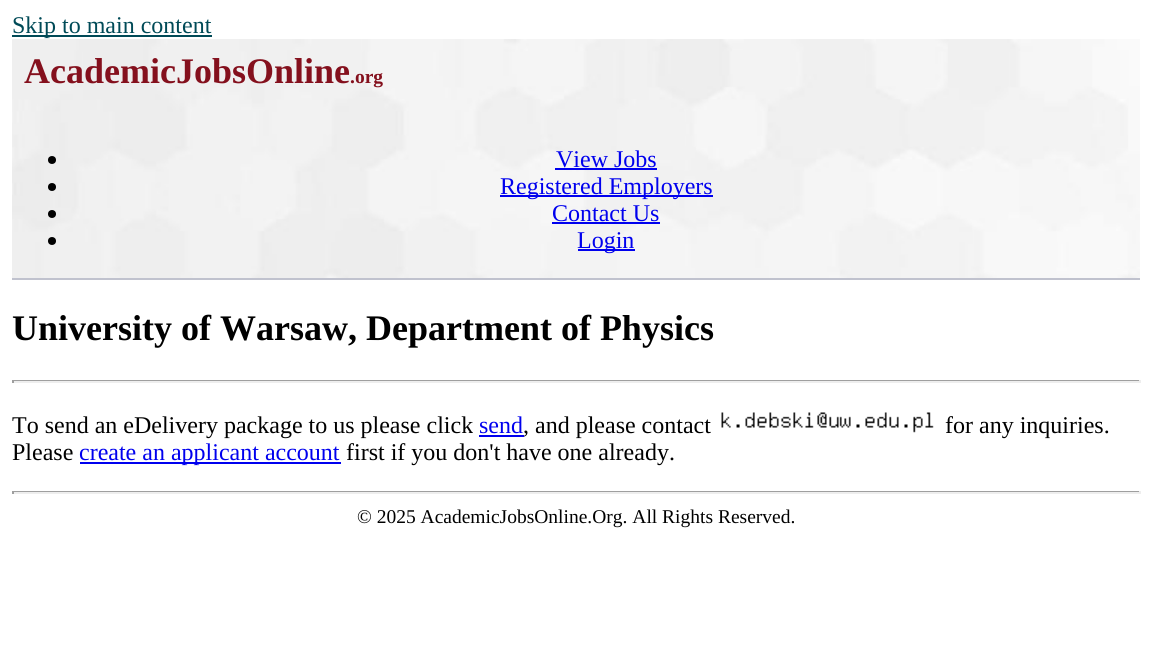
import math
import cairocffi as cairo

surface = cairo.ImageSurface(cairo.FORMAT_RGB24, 1151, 649)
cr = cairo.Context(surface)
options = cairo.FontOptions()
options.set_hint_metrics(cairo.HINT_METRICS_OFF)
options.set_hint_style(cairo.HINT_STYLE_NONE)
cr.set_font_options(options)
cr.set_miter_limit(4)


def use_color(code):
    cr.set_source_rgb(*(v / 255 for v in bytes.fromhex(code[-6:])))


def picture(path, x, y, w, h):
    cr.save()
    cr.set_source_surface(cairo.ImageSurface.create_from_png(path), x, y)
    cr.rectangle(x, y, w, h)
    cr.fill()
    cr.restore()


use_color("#ffffff")
cr.paint()
use_color("#004a57")
cr.rectangle(12, 35, 200, 2)
cr.fill()
cr.select_font_face("Liberation Serif")
cr.set_font_size(24)
cr.move_to(12, 33)
cr.show_text("Skip to main content")
picture("img1.png", 12, 39, 1128, 239)
cr.select_font_face("Liberation Serif", cairo.FONT_SLANT_NORMAL, cairo.FONT_WEIGHT_BOLD)
cr.set_font_size(36)
use_color("#84101d")
cr.move_to(24, 83)
cr.show_text("AcademicJobsOnline")
cr.set_font_size(19.5)
cr.move_to(350, 83)
cr.show_text(".org")
use_color("#000000")
cr.new_path()
cr.arc(52, 160, 4, 0, 2 * math.pi)
cr.fill()
cr.select_font_face("Liberation Serif")
cr.set_font_size(24)
use_color("#0000ee")
cr.move_to(556, 167)
cr.show_text("View Jobs")
cr.rectangle(555, 168, 102, 2)
cr.fill()
use_color("#000000")
cr.arc(52, 187, 4, 0, 2 * math.pi)
cr.fill()
use_color("#0000ee")
cr.rectangle(500, 195, 213, 2)
cr.fill()
cr.move_to(500, 194)
cr.show_text("Registered Employers")
use_color("#000000")
cr.new_path()
cr.arc(52, 214, 4, 0, 2 * math.pi)
cr.fill()
use_color("#0000ee")
cr.move_to(552, 221)
cr.show_text("Contact Us")
cr.rectangle(552, 222, 108, 2)
cr.fill()
use_color("#000000")
cr.arc(52, 241, 4, 0, 2 * math.pi)
cr.fill()
use_color("#0000ee")
cr.rectangle(578, 249, 57, 2)
cr.fill()
cr.move_to(577, 248)
cr.show_text("Login")
use_color("#c0c2ce")
cr.rectangle(12, 278, 1128, 2)
cr.fill()
cr.select_font_face("Liberation Serif", cairo.FONT_SLANT_NORMAL, cairo.FONT_WEIGHT_BOLD)
cr.set_font_size(36)
use_color("#000000")
cr.move_to(12, 340)
cr.show_text("University of Warsaw, Department of Physics")
use_color("#9f9f9f")
cr.rectangle(12, 380, 1128, 1)
cr.fill()
use_color("#eeeeee")
cr.rectangle(1139, 380, 2, 3)
cr.fill()
cr.rectangle(12, 381, 1128, 2)
cr.fill()
use_color("#9f9f9f")
cr.rectangle(12, 380, 2, 3)
cr.fill()
cr.select_font_face("Liberation Serif")
cr.set_font_size(24)
use_color("#000000")
cr.move_to(12, 433)
cr.show_text("To send an eDelivery package to us please click")
use_color("#0000ee")
cr.move_to(479, 433)
cr.show_text("send")
cr.rectangle(479, 435, 45, 2)
cr.fill()
use_color("#000000")
cr.move_to(523, 433)
cr.show_text(", and please contact")
picture("img2.png", 721, 412, 213, 21)
cr.move_to(945, 433)
cr.show_text("for any inquiries.")
cr.move_to(12, 460)
cr.show_text("Please")
use_color("#0000ee")
cr.rectangle(80, 462, 261, 2)
cr.fill()
cr.move_to(79, 460)
cr.show_text("create an applicant account")
use_color("#000000")
cr.move_to(346, 460)
cr.show_text("first if you don't have one already.")
use_color("#9f9f9f")
cr.rectangle(12, 491, 1128, 1)
cr.fill()
use_color("#eeeeee")
cr.rectangle(1139, 491, 2, 3)
cr.fill()
cr.rectangle(12, 492, 1128, 2)
cr.fill()
use_color("#9f9f9f")
cr.rectangle(12, 491, 2, 3)
cr.fill()
cr.set_font_size(19.5)
use_color("#000000")
cr.move_to(357, 523)
cr.show_text("© 2025 AcademicJobsOnline.Org. All Rights Reserved.")
surface.write_to_png("result.png")
